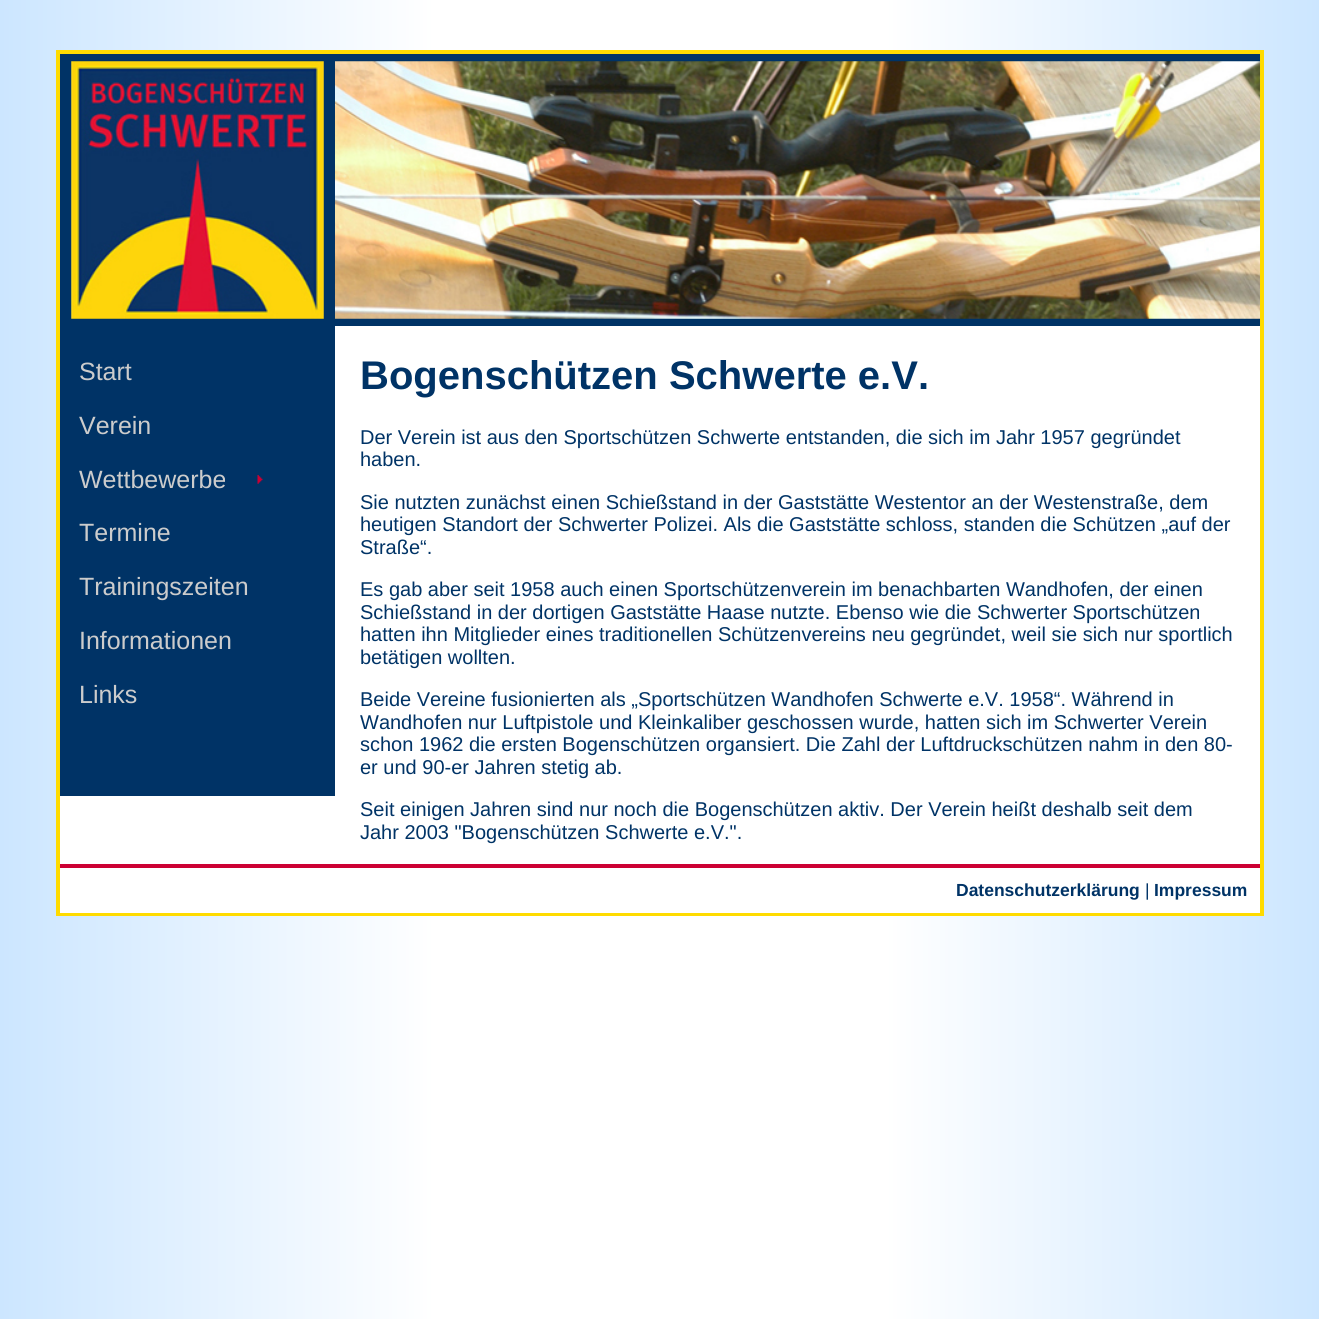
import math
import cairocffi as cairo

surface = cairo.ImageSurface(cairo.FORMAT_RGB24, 1319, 1319)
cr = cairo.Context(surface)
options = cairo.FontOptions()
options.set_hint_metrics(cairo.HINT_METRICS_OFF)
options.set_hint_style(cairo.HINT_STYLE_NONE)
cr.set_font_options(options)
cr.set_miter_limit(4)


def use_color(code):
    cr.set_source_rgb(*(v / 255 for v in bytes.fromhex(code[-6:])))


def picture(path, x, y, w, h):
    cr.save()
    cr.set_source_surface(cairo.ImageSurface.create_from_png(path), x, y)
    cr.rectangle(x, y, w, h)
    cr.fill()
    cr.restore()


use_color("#ffffff")
cr.paint()
gradient = cairo.LinearGradient(0, 483, 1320, 483)
gradient.add_color_stop_rgba(0, 0.8, 0.902, 1, 1)
gradient.add_color_stop_rgba(0.33, 1, 1, 1, 1)
gradient.add_color_stop_rgba(0.67, 1, 1, 1, 1)
gradient.add_color_stop_rgba(1, 0.8, 0.902, 1, 1)
cr.set_source(gradient)
cr.rectangle(0, 0, 1319, 1319)
cr.fill()
use_color("#ffffff")
cr.rectangle(60, 326, 1200, 538)
cr.fill()
cr.rectangle(58, 52, 1204, 862)
use_color("#ffdb00")
cr.set_line_width(4)
cr.stroke()
use_color("#003366")
cr.rectangle(60, 54, 1200, 272)
cr.fill()
picture("img1.png", 71, 61, 253, 258)
picture("img2.png", 335, 61, 925, 258)
cr.rectangle(60, 326, 275, 470)
cr.fill()
cr.select_font_face("Liberation Sans")
cr.set_font_size(25)
use_color("#cccccc")
cr.move_to(79, 380)
cr.show_text("Start")
cr.move_to(79, 434)
cr.show_text("Verein")
picture("img3.png", 257, 475, 6, 9)
cr.move_to(79, 488)
cr.show_text("Wettbewerbe")
cr.move_to(79, 541)
cr.show_text("Termine")
cr.move_to(79, 595)
cr.show_text("Trainingszeiten")
cr.move_to(79, 649)
cr.show_text("Informationen")
cr.move_to(79, 703)
cr.show_text("Links")
cr.select_font_face("Liberation Sans", cairo.FONT_SLANT_NORMAL, cairo.FONT_WEIGHT_BOLD)
cr.set_font_size(40)
use_color("#003366")
cr.move_to(360, 389)
cr.show_text("Bogenschützen Schwerte e.V.")
cr.select_font_face("Liberation Sans")
cr.set_font_size(20)
cr.move_to(360, 444)
cr.show_text("Der Verein ist aus den Sportschützen Schwerte entstanden, die sich im Jahr 1957 gegründet")
cr.move_to(360, 466)
cr.show_text("haben.")
cr.move_to(360, 509)
cr.show_text("Sie nutzten zunächst einen Schießstand in der Gaststätte Westentor an der Westenstraße, dem")
cr.move_to(360, 531)
cr.show_text("heutigen Standort der Schwerter Polizei. Als die Gaststätte schloss, standen die Schützen „auf der")
cr.move_to(360, 554)
cr.show_text("Straße“.")
cr.move_to(360, 596)
cr.show_text("Es gab aber seit 1958 auch einen Sportschützenverein im benachbarten Wandhofen, der einen")
cr.move_to(360, 619)
cr.show_text("Schießstand in der dortigen Gaststätte Haase nutzte. Ebenso wie die Schwerter Sportschützen")
cr.move_to(360, 641)
cr.show_text("hatten ihn Mitglieder eines traditionellen Schützenvereins neu gegründet, weil sie sich nur sportlich")
cr.move_to(360, 664)
cr.show_text("betätigen wollten.")
cr.move_to(360, 706)
cr.show_text("Beide Vereine fusionierten als „Sportschützen Wandhofen Schwerte e.V. 1958“. Während in")
cr.move_to(360, 729)
cr.show_text("Wandhofen nur Luftpistole und Kleinkaliber geschossen wurde, hatten sich im Schwerter Verein")
cr.move_to(360, 751)
cr.show_text("schon 1962 die ersten Bogenschützen organsiert. Die Zahl der Luftdruckschützen nahm in den 80-")
cr.move_to(360, 774)
cr.show_text("er und 90-er Jahren stetig ab.")
cr.move_to(360, 816)
cr.show_text("Seit einigen Jahren sind nur noch die Bogenschützen aktiv. Der Verein heißt deshalb seit dem")
cr.move_to(360, 839)
cr.show_text("Jahr 2003 \"Bogenschützen Schwerte e.V.\".")
use_color("#ffffff")
cr.rectangle(60, 868, 1200, 45)
cr.fill()
use_color("#cc0033")
cr.rectangle(60, 864, 1200, 4)
cr.fill()
cr.select_font_face("Liberation Sans", cairo.FONT_SLANT_NORMAL, cairo.FONT_WEIGHT_BOLD)
cr.set_font_size(17.5)
use_color("#003366")
cr.move_to(956, 896)
cr.show_text("Datenschutzerklärung")
cr.select_font_face("Liberation Sans")
cr.move_to(1145, 896)
cr.show_text("|")
cr.select_font_face("Liberation Sans", cairo.FONT_SLANT_NORMAL, cairo.FONT_WEIGHT_BOLD)
cr.move_to(1154, 896)
cr.show_text("Impressum")
surface.write_to_png("result.png")
